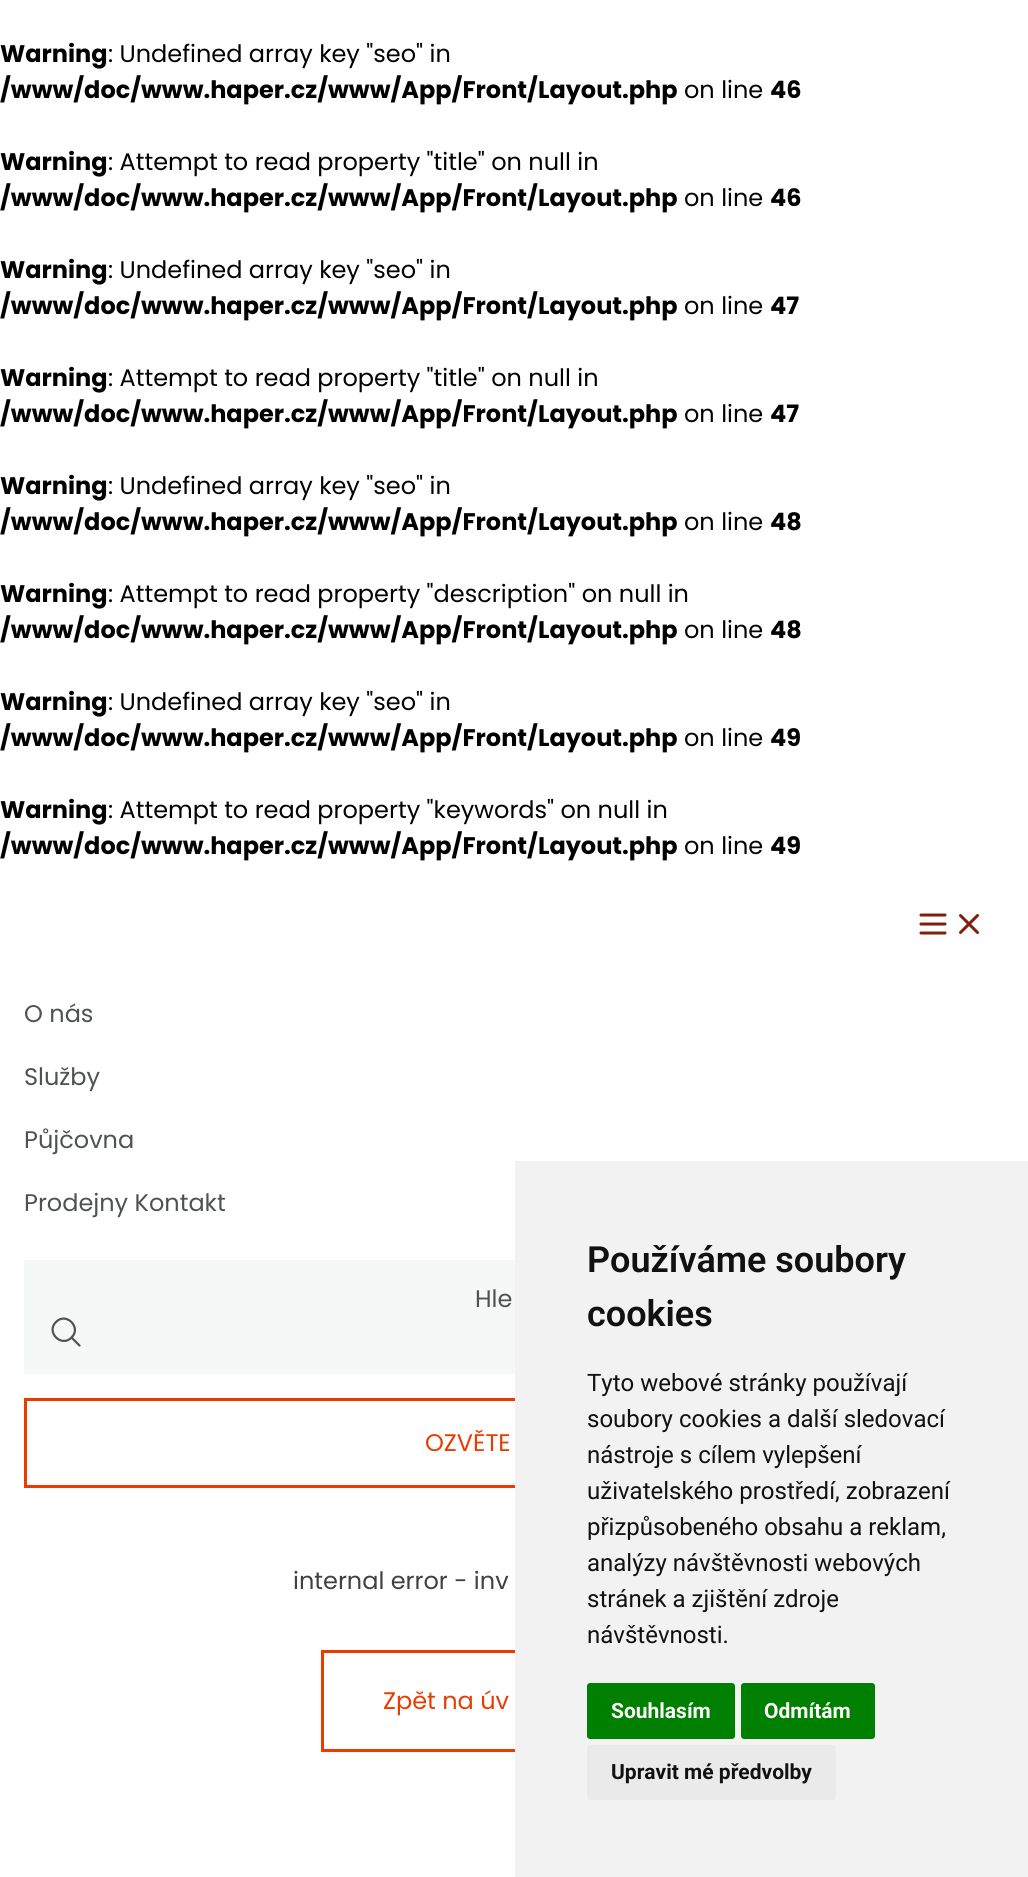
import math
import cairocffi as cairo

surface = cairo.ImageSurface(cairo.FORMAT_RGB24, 1028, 1877)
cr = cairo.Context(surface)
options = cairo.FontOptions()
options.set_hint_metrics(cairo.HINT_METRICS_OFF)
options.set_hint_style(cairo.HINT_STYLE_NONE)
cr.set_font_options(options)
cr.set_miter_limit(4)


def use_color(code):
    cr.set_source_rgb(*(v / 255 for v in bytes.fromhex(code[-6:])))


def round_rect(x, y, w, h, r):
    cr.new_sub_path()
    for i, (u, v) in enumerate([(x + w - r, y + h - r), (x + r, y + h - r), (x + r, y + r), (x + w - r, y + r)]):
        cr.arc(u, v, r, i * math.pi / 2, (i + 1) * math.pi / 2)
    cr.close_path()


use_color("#ffffff")
cr.paint()
cr.select_font_face("Poppins", cairo.FONT_SLANT_NORMAL, cairo.FONT_WEIGHT_BOLD)
cr.set_font_size(24)
use_color("#000000")
cr.move_to(0, 62)
cr.show_text("Warning")
cr.select_font_face("Poppins")
cr.move_to(108, 62)
cr.show_text(": Undefined array key \"seo\" in")
cr.select_font_face("Poppins", cairo.FONT_SLANT_NORMAL, cairo.FONT_WEIGHT_BOLD)
cr.move_to(0, 98)
cr.show_text("/www/doc/www.haper.cz/www/App/Front/Layout.php")
cr.select_font_face("Poppins")
cr.move_to(684, 98)
cr.show_text("on line")
cr.select_font_face("Poppins", cairo.FONT_SLANT_NORMAL, cairo.FONT_WEIGHT_BOLD)
cr.move_to(770, 98)
cr.show_text("46")
cr.move_to(0, 170)
cr.show_text("Warning")
cr.select_font_face("Poppins")
cr.move_to(108, 170)
cr.show_text(": Attempt to read property \"title\" on null in")
cr.select_font_face("Poppins", cairo.FONT_SLANT_NORMAL, cairo.FONT_WEIGHT_BOLD)
cr.move_to(0, 206)
cr.show_text("/www/doc/www.haper.cz/www/App/Front/Layout.php")
cr.select_font_face("Poppins")
cr.move_to(684, 206)
cr.show_text("on line")
cr.select_font_face("Poppins", cairo.FONT_SLANT_NORMAL, cairo.FONT_WEIGHT_BOLD)
cr.move_to(770, 206)
cr.show_text("46")
cr.move_to(0, 278)
cr.show_text("Warning")
cr.select_font_face("Poppins")
cr.move_to(108, 278)
cr.show_text(": Undefined array key \"seo\" in")
cr.select_font_face("Poppins", cairo.FONT_SLANT_NORMAL, cairo.FONT_WEIGHT_BOLD)
cr.move_to(0, 314)
cr.show_text("/www/doc/www.haper.cz/www/App/Front/Layout.php")
cr.select_font_face("Poppins")
cr.move_to(684, 314)
cr.show_text("on line")
cr.select_font_face("Poppins", cairo.FONT_SLANT_NORMAL, cairo.FONT_WEIGHT_BOLD)
cr.move_to(770, 314)
cr.show_text("47")
cr.move_to(0, 386)
cr.show_text("Warning")
cr.select_font_face("Poppins")
cr.move_to(108, 386)
cr.show_text(": Attempt to read property \"title\" on null in")
cr.select_font_face("Poppins", cairo.FONT_SLANT_NORMAL, cairo.FONT_WEIGHT_BOLD)
cr.move_to(0, 422)
cr.show_text("/www/doc/www.haper.cz/www/App/Front/Layout.php")
cr.select_font_face("Poppins")
cr.move_to(684, 422)
cr.show_text("on line")
cr.select_font_face("Poppins", cairo.FONT_SLANT_NORMAL, cairo.FONT_WEIGHT_BOLD)
cr.move_to(770, 422)
cr.show_text("47")
cr.move_to(0, 494)
cr.show_text("Warning")
cr.select_font_face("Poppins")
cr.move_to(108, 494)
cr.show_text(": Undefined array key \"seo\" in")
cr.select_font_face("Poppins", cairo.FONT_SLANT_NORMAL, cairo.FONT_WEIGHT_BOLD)
cr.move_to(0, 530)
cr.show_text("/www/doc/www.haper.cz/www/App/Front/Layout.php")
cr.select_font_face("Poppins")
cr.move_to(684, 530)
cr.show_text("on line")
cr.select_font_face("Poppins", cairo.FONT_SLANT_NORMAL, cairo.FONT_WEIGHT_BOLD)
cr.move_to(770, 530)
cr.show_text("48")
cr.move_to(0, 602)
cr.show_text("Warning")
cr.select_font_face("Poppins")
cr.move_to(108, 602)
cr.show_text(": Attempt to read property \"description\" on null in")
cr.select_font_face("Poppins", cairo.FONT_SLANT_NORMAL, cairo.FONT_WEIGHT_BOLD)
cr.move_to(0, 638)
cr.show_text("/www/doc/www.haper.cz/www/App/Front/Layout.php")
cr.select_font_face("Poppins")
cr.move_to(684, 638)
cr.show_text("on line")
cr.select_font_face("Poppins", cairo.FONT_SLANT_NORMAL, cairo.FONT_WEIGHT_BOLD)
cr.move_to(770, 638)
cr.show_text("48")
cr.move_to(0, 710)
cr.show_text("Warning")
cr.select_font_face("Poppins")
cr.move_to(108, 710)
cr.show_text(": Undefined array key \"seo\" in")
cr.select_font_face("Poppins", cairo.FONT_SLANT_NORMAL, cairo.FONT_WEIGHT_BOLD)
cr.move_to(0, 746)
cr.show_text("/www/doc/www.haper.cz/www/App/Front/Layout.php")
cr.select_font_face("Poppins")
cr.move_to(684, 746)
cr.show_text("on line")
cr.select_font_face("Poppins", cairo.FONT_SLANT_NORMAL, cairo.FONT_WEIGHT_BOLD)
cr.move_to(770, 746)
cr.show_text("49")
cr.move_to(0, 818)
cr.show_text("Warning")
cr.select_font_face("Poppins")
cr.move_to(108, 818)
cr.show_text(": Attempt to read property \"keywords\" on null in")
cr.select_font_face("Poppins", cairo.FONT_SLANT_NORMAL, cairo.FONT_WEIGHT_BOLD)
cr.move_to(0, 854)
cr.show_text("/www/doc/www.haper.cz/www/App/Front/Layout.php")
cr.select_font_face("Poppins")
cr.move_to(684, 854)
cr.show_text("on line")
cr.select_font_face("Poppins", cairo.FONT_SLANT_NORMAL, cairo.FONT_WEIGHT_BOLD)
cr.move_to(770, 854)
cr.show_text("49")
cr.new_path()
cr.move_to(921, 915)
cr.line_to(945, 915)
cr.move_to(921, 924)
cr.line_to(945, 924)
cr.move_to(921, 933)
cr.line_to(945, 933)
use_color("#821f0c")
cr.set_line_width(3)
cr.set_line_cap(cairo.LINE_CAP_ROUND)
cr.set_line_join(cairo.LINE_JOIN_ROUND)
cr.stroke()
cr.new_path()
cr.move_to(977.5, 915.5)
cr.line_to(960.5, 932.5)
cr.move_to(977.5, 932.5)
cr.line_to(960.5, 915.5)
cr.stroke()
cr.select_font_face("Poppins")
use_color("#4e5350")
cr.move_to(24, 1022)
cr.show_text("O nás")
cr.move_to(24, 1085)
cr.show_text("Služby")
cr.move_to(24, 1148)
cr.show_text("Půjčovna")
cr.move_to(24, 1211)
cr.show_text("Prodejny Kontakt")
use_color("#f6f7f7")
cr.rectangle(24, 1260, 491, 114)
cr.fill()
use_color("#4e5350")
cr.move_to(475, 1307)
cr.show_text("Hle")
cr.new_path()
cr.move_to(79.5, 1345.5)
cr.line_to(71.5, 1337.5)
cr.move_to(71.5, 1337.5)
cr.curve_to(82, 1327.5, 66, 1311.5, 56, 1322)
cr.curve_to(45.5, 1332, 61.5, 1348, 71.5, 1337.5)
cr.close_path()
cr.set_line_width(2.2)
cr.stroke()
cr.rectangle(25.5, 1399.5, 978, 87)
use_color("#ea3b00")
cr.set_line_width(3)
cr.set_line_cap(cairo.LINE_CAP_BUTT)
cr.set_line_join(cairo.LINE_JOIN_MITER)
cr.stroke()
cr.move_to(425, 1451)
cr.show_text("OZVĚTE")
cr.rectangle(322.5, 1651.5, 384, 99)
cr.stroke()
use_color("#f2f2f2")
cr.rectangle(515, 1161, 513, 716)
cr.fill()
cr.select_font_face("Roboto SemiBold")
cr.set_font_size(36)
use_color("#111111")
cr.move_to(587, 1272)
cr.show_text("Používáme soubory")
cr.move_to(587, 1326)
cr.show_text("cookies")
cr.select_font_face("Roboto")
cr.set_font_size(24)
cr.move_to(587, 1391)
cr.show_text("Tyto webové stránky používají")
cr.move_to(587, 1427)
cr.show_text("soubory cookies a další sledovací")
cr.move_to(587, 1463)
cr.show_text("nástroje s cílem vylepšení")
cr.move_to(587, 1499)
cr.show_text("uživatelského prostředí, zobrazení")
cr.move_to(587, 1535)
cr.show_text("přizpůsobeného obsahu a reklam,")
cr.move_to(587, 1571)
cr.show_text("analýzy návštěvnosti webových")
cr.move_to(587, 1607)
cr.show_text("stránek a zjištění zdroje")
cr.move_to(587, 1643)
cr.show_text("návštěvnosti.")
use_color("#008000")
round_rect(587, 1683, 148, 56, 3)
cr.fill()
cr.select_font_face("Roboto", cairo.FONT_SLANT_NORMAL, cairo.FONT_WEIGHT_BOLD)
cr.set_font_size(21)
use_color("#ffffff")
cr.move_to(611, 1718)
cr.show_text("Souhlasím")
use_color("#008000")
round_rect(741, 1683, 134, 56, 3)
cr.fill()
use_color("#ffffff")
cr.move_to(764, 1718)
cr.show_text("Odmítám")
use_color("#eaeaea")
round_rect(587, 1745, 249, 55, 3)
cr.fill()
use_color("#111111")
cr.move_to(611, 1779)
cr.show_text("Upravit mé předvolby")
cr.select_font_face("Poppins")
cr.set_font_size(24)
use_color("#3f3f46")
cr.move_to(293, 1589)
cr.show_text("internal error - inv")
use_color("#ea3b00")
cr.move_to(383, 1709)
cr.show_text("Zpět na úv")
surface.write_to_png("result.png")
